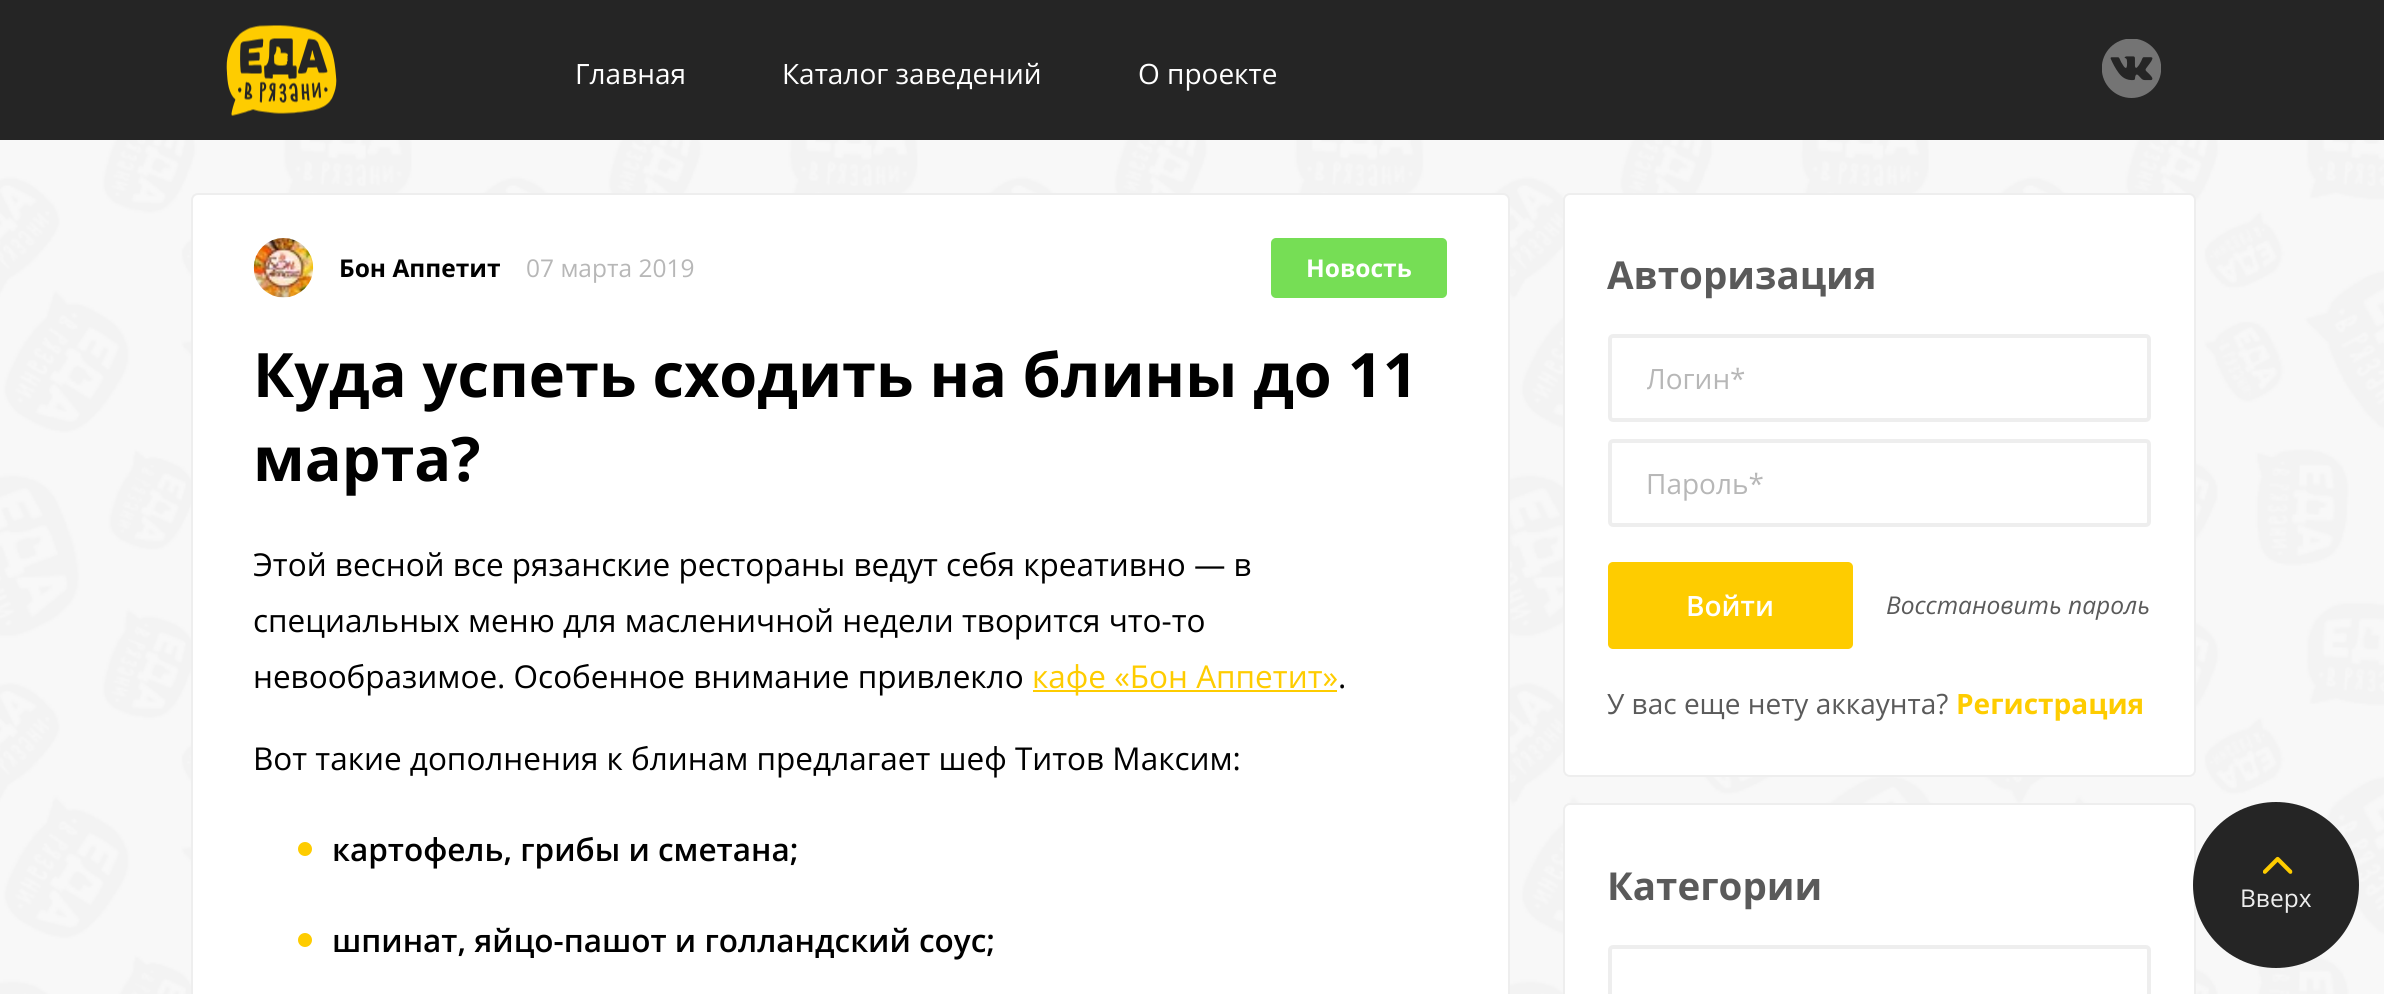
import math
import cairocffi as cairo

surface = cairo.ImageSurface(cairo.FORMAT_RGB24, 2384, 994)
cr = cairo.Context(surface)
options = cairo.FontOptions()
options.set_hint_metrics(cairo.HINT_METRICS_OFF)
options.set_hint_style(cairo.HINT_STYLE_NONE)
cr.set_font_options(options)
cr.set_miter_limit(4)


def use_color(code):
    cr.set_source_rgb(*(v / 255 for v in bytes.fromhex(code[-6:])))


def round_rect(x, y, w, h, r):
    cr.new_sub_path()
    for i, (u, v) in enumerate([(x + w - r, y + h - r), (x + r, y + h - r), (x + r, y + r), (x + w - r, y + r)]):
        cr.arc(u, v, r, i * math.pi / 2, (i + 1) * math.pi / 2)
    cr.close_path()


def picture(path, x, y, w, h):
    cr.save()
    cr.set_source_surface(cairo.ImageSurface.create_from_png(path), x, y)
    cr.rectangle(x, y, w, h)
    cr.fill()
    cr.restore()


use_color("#f9f9f9")
cr.paint()
picture("img1.png", 0, 140, 2384, 854)
use_color("#252525")
cr.rectangle(0, 0, 2384, 140)
cr.fill()
picture("img2.png", 226, 25, 111, 91)
cr.select_font_face("Open Sans")
cr.set_font_size(28)
use_color("#ffffff")
cr.move_to(575, 84)
cr.show_text("Главная")
cr.move_to(782, 84)
cr.show_text("Каталог заведений")
cr.move_to(1138, 84)
cr.show_text("О проекте")
picture("img3.png", 2102, 39, 59, 59)
round_rect(192, 194, 1317, 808, 6)
cr.fill_preserve()
use_color("#eeeeee")
cr.stroke()
picture("img4.png", 253, 238, 61, 60)
cr.select_font_face("Open Sans", cairo.FONT_SLANT_NORMAL, cairo.FONT_WEIGHT_BOLD)
cr.set_font_size(24.5)
use_color("#000000")
cr.move_to(339, 277)
cr.show_text("Бон Аппетит")
cr.select_font_face("Open Sans")
use_color("#b7b7b7")
cr.move_to(526, 277)
cr.show_text("07 марта 2019")
use_color("#76de55")
round_rect(1271, 238, 176, 60, 5)
cr.fill()
cr.select_font_face("Open Sans", cairo.FONT_SLANT_NORMAL, cairo.FONT_WEIGHT_BOLD)
use_color("#ffffff")
cr.move_to(1306, 277)
cr.show_text("Новость")
cr.set_font_size(61.25)
use_color("#000000")
cr.move_to(253, 397)
cr.show_text("Куда успеть сходить на блины до 11")
cr.move_to(253, 481)
cr.show_text("марта?")
cr.select_font_face("Open Sans")
cr.set_font_size(31.5)
cr.move_to(253, 576)
cr.show_text("Этой весной все рязанские рестораны ведут себя креативно — в")
cr.move_to(253, 632)
cr.show_text("специальных меню для масленичной недели творится что-то")
cr.move_to(253, 688)
cr.show_text("невообразимое. Особенное внимание привлекло")
use_color("#fecc00")
cr.rectangle(1033, 690, 304, 2)
cr.fill()
cr.move_to(1032, 688)
cr.show_text("кафе «Бон Аппетит»")
use_color("#000000")
cr.move_to(1338, 688)
cr.show_text(".")
cr.move_to(253, 770)
cr.show_text("Вот такие дополнения к блинам предлагает шеф Титов Максим:")
use_color("#fecc00")
cr.new_path()
cr.arc(305, 849, 7, 0, 2 * math.pi)
cr.fill()
cr.select_font_face("Open Sans SemiBold")
use_color("#000000")
cr.move_to(332, 861)
cr.show_text("картофель, грибы и сметана;")
use_color("#fecc00")
cr.new_path()
cr.arc(305, 940, 7, 0, 2 * math.pi)
cr.fill()
use_color("#000000")
cr.move_to(332, 952)
cr.show_text("шпинат, яйцо-пашот и голландский соус;")
use_color("#ffffff")
round_rect(1564, 194, 631, 582, 6)
cr.fill_preserve()
use_color("#eeeeee")
cr.stroke()
cr.select_font_face("Open Sans", cairo.FONT_SLANT_NORMAL, cairo.FONT_WEIGHT_BOLD)
cr.set_font_size(38.5)
use_color("#5a5a5a")
cr.move_to(1607, 289)
cr.show_text("Авторизация")
round_rect(1610, 336, 539, 84, 3)
use_color("#eeeeee")
cr.set_line_width(4)
cr.stroke()
cr.save()
cr.rectangle(1647, 359, 465, 38)
cr.clip()
cr.select_font_face("Open Sans")
cr.set_font_size(28)
use_color("#b7b7b7")
cr.move_to(1646, 389)
cr.show_text("Логин*")
cr.restore()
round_rect(1610, 441, 539, 84, 3)
cr.stroke()
cr.select_font_face("Open Sans")
cr.set_font_size(28)
use_color("#b7b7b7")
cr.move_to(1646, 494)
cr.show_text("Пароль*")
use_color("#fecc00")
round_rect(1608, 562, 245, 87, 5)
cr.fill()
cr.select_font_face("Open Sans SemiBold")
use_color("#ffffff")
cr.move_to(1686, 616)
cr.show_text("Войти")
cr.select_font_face("Open Sans", cairo.FONT_SLANT_ITALIC)
cr.set_font_size(24.5)
use_color("#5a5a5a")
cr.move_to(1886, 614)
cr.show_text("Восстановить пароль")
cr.select_font_face("Open Sans")
cr.set_font_size(28)
cr.move_to(1607, 714)
cr.show_text("У вас еще нету аккаунта?")
cr.select_font_face("Open Sans", cairo.FONT_SLANT_NORMAL, cairo.FONT_WEIGHT_BOLD)
use_color("#fecc00")
cr.move_to(1956, 714)
cr.show_text("Регистрация")
use_color("#ffffff")
round_rect(1564, 804, 631, 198, 6)
cr.fill_preserve()
use_color("#eeeeee")
cr.set_line_width(2)
cr.stroke()
cr.set_font_size(38.5)
use_color("#5a5a5a")
cr.move_to(1607, 900)
cr.show_text("Категории")
round_rect(1610, 947, 539, 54, 3)
use_color("#eeeeee")
cr.set_line_width(4)
cr.stroke()
use_color("#252525")
cr.arc(2276, 885, 83, 0, 2 * math.pi)
cr.fill()
picture("img5.png", 2263, 856, 30, 18)
cr.select_font_face("Open Sans")
cr.set_font_size(24.5)
use_color("#eeeeee")
cr.move_to(2240, 907)
cr.show_text("Вверх")
surface.write_to_png("result.png")
